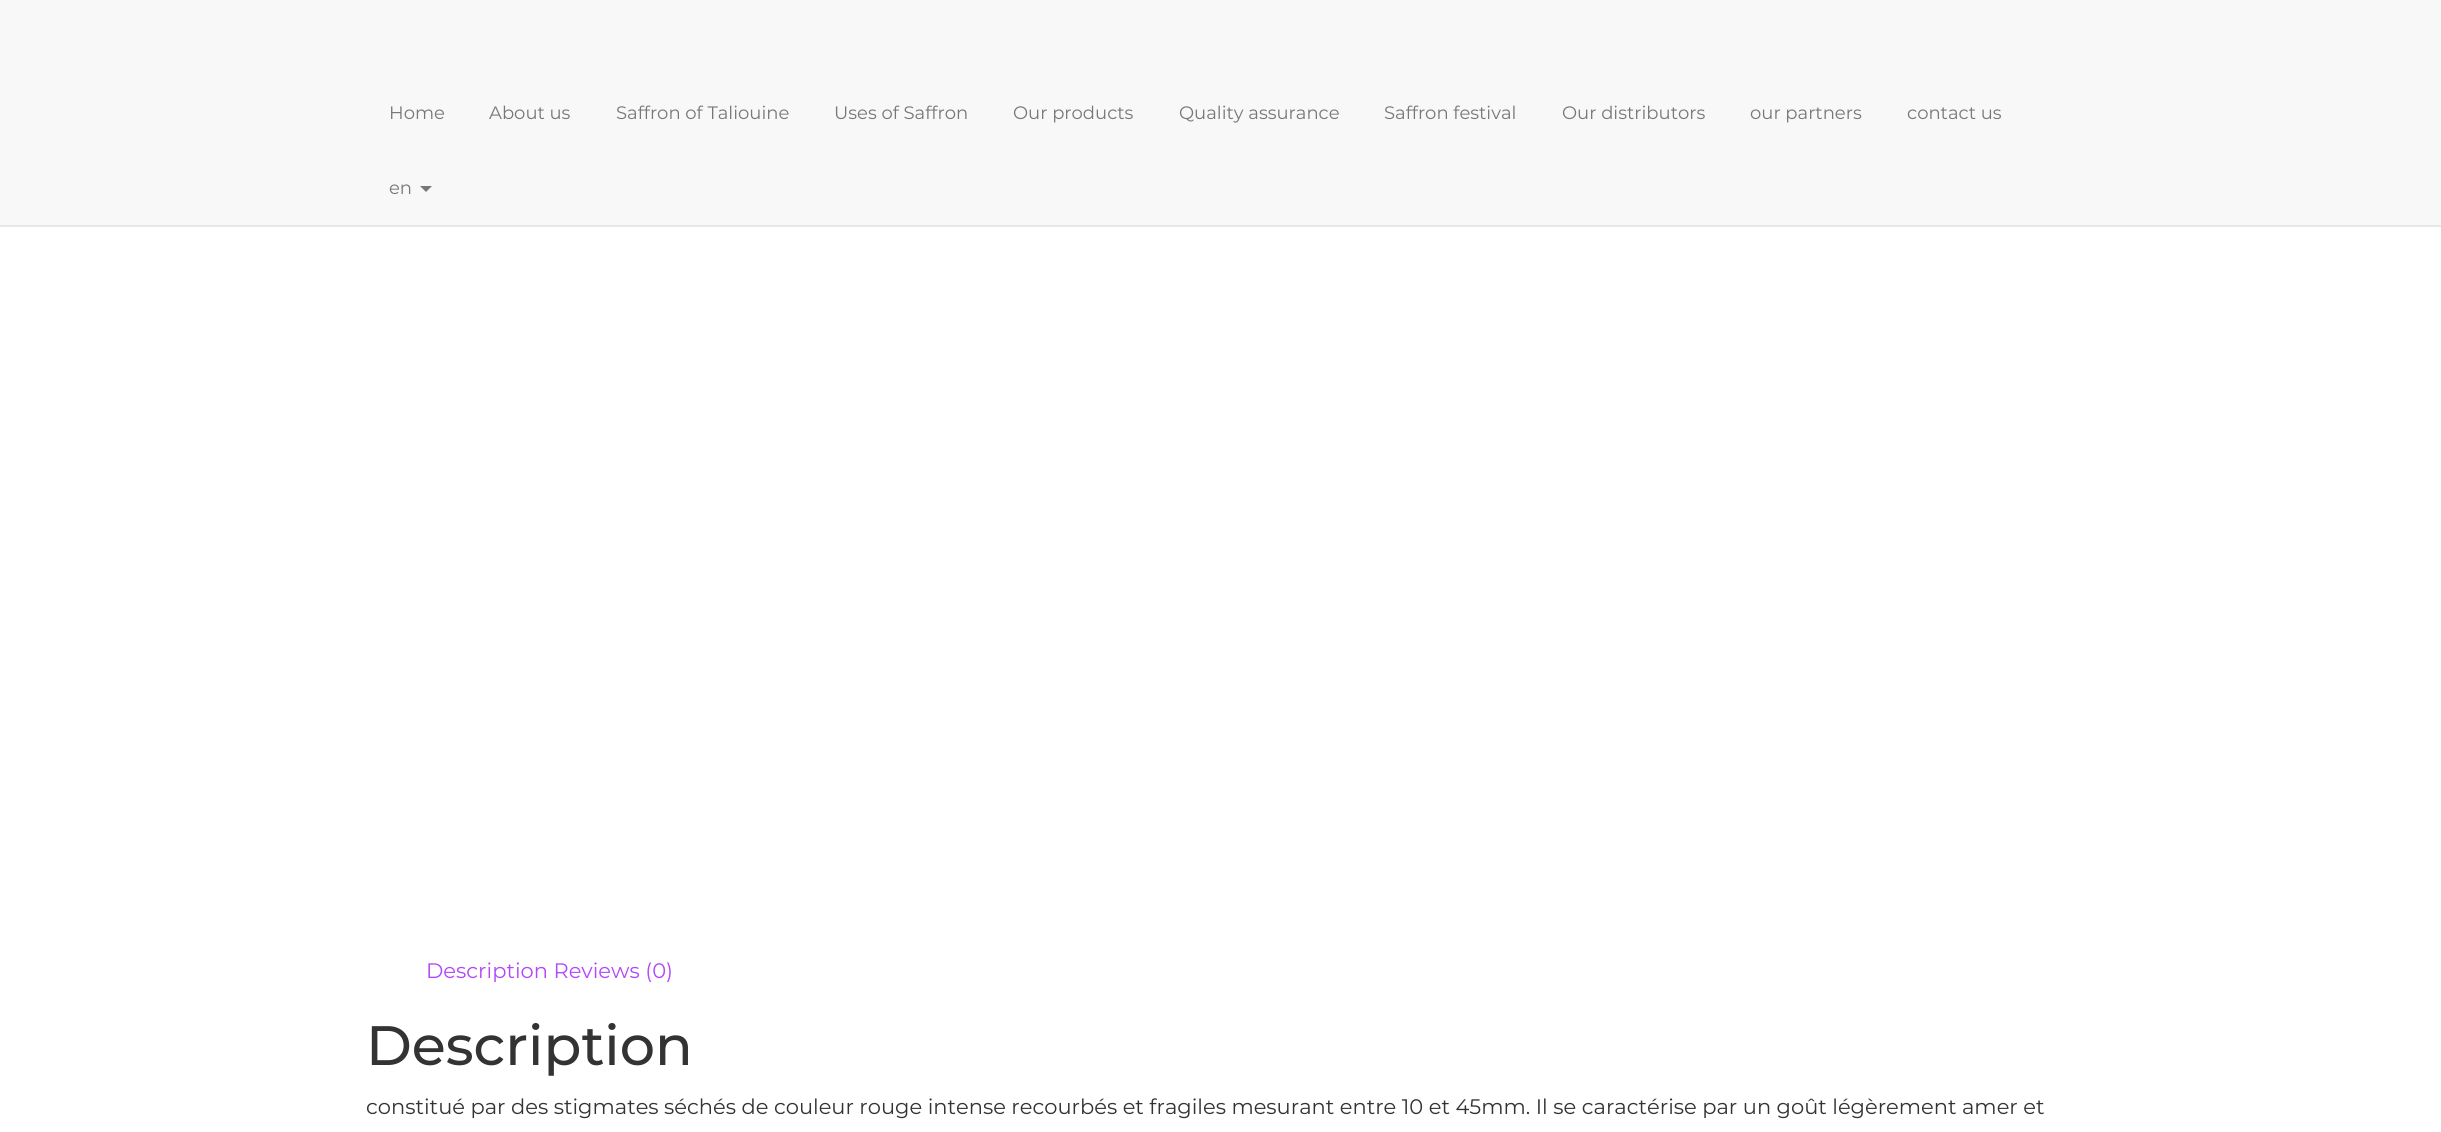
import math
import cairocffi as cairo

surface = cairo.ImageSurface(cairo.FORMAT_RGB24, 2441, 1132)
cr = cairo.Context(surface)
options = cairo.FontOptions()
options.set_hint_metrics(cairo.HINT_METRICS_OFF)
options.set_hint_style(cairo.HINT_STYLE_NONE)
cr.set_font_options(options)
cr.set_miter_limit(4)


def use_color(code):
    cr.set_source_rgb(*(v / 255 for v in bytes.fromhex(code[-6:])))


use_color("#ffffff")
cr.paint()
use_color("#f8f8f8")
cr.rectangle(0, 0, 2441, 225)
cr.fill()
use_color("#e7e7e7")
cr.rectangle(0, 225, 2441, 2)
cr.fill()
cr.select_font_face("Montserrat")
cr.set_font_size(18)
use_color("#777777")
cr.move_to(389, 119)
cr.show_text("Home")
cr.move_to(489, 119)
cr.show_text("About us")
cr.move_to(616, 119)
cr.show_text("Saffron of Taliouine")
cr.move_to(834, 119)
cr.show_text("Uses of Saffron")
cr.move_to(1013, 119)
cr.show_text("Our products")
cr.move_to(1179, 119)
cr.show_text("Quality assurance")
cr.move_to(1384, 119)
cr.show_text("Saffron festival")
cr.move_to(1562, 119)
cr.show_text("Our distributors")
cr.move_to(1750, 119)
cr.show_text("our partners")
cr.move_to(1907, 119)
cr.show_text("contact us")
cr.move_to(389, 194)
cr.show_text("en")
cr.new_path()
cr.move_to(420, 186)
cr.line_to(432, 186)
cr.line_to(426, 192)
cr.close_path()
cr.fill()
cr.set_font_size(21)
use_color("#b248f9")
cr.move_to(426, 978)
cr.show_text("Description Reviews (0)")
cr.select_font_face("Montserrat Medium")
cr.set_font_size(55.5)
use_color("#333333")
cr.move_to(366, 1065)
cr.show_text("Description")
cr.select_font_face("Montserrat")
cr.set_font_size(21)
cr.move_to(366, 1114)
cr.show_text("constitué par des stigmates séchés de couleur rouge intense recourbés et fragiles mesurant entre 10 et 45mm. Il se caractérise par un goût légèrement amer et")
surface.write_to_png("result.png")
